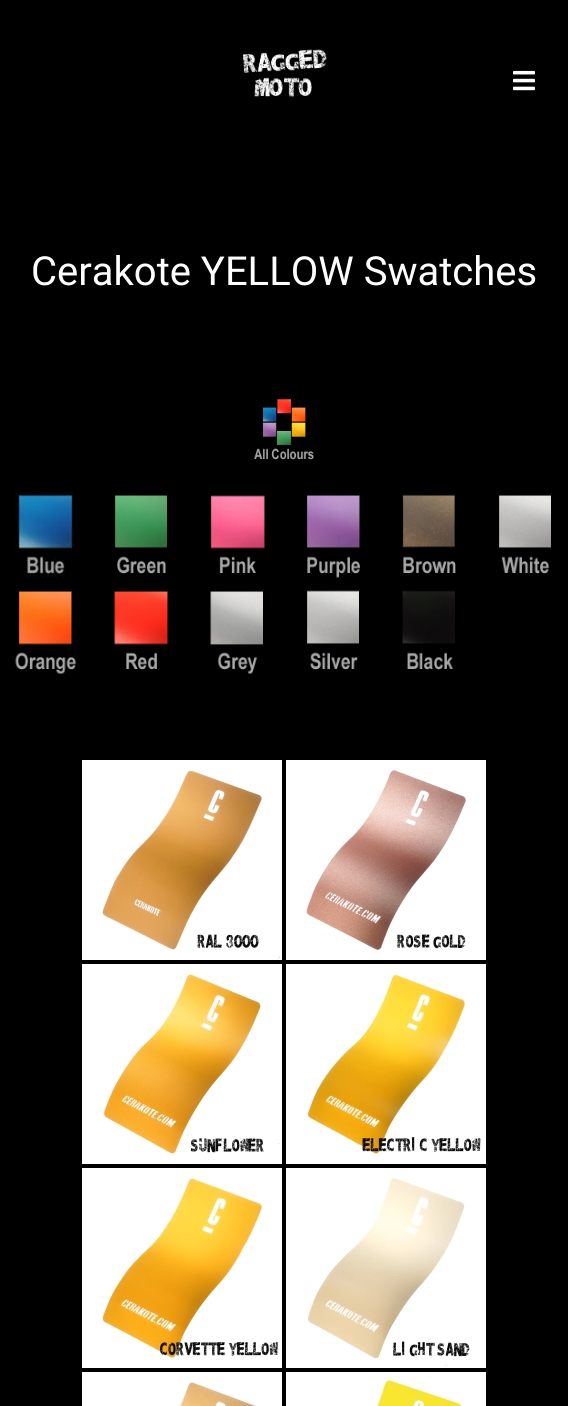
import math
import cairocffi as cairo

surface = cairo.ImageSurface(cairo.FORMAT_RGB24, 568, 1406)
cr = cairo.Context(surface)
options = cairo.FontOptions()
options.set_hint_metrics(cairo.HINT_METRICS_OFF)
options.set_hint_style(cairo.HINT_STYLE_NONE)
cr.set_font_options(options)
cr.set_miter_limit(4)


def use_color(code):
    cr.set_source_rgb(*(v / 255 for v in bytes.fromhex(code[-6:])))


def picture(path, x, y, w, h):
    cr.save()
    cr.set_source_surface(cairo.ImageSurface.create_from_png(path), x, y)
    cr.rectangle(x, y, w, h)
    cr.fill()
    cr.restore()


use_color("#000000")
cr.paint()
picture("img1.png", 242, 49, 85, 48)
picture("img2.png", 513, 70, 22, 21)
cr.select_font_face("Roboto")
cr.set_font_size(40)
use_color("#ffffff")
cr.move_to(31, 285)
cr.show_text("Cerakote YELLOW Swatches")
picture("img3.png", 254, 398, 60, 62)
picture("img4.png", 15, 491, 58, 87)
picture("img5.png", 115, 495, 52, 79)
picture("img6.png", 211, 495, 54, 78)
picture("img7.png", 307, 495, 53, 83)
picture("img8.png", 402, 494, 54, 80)
picture("img9.png", 499, 495, 52, 79)
picture("img10.png", 15, 591, 61, 83)
picture("img11.png", 114, 591, 54, 79)
picture("img12.png", 210, 591, 53, 83)
picture("img13.png", 307, 590, 52, 80)
picture("img14.png", 402, 590, 53, 80)
picture("img15.png", 82, 760, 200, 200)
picture("img16.png", 286, 760, 200, 200)
picture("img17.png", 82, 964, 200, 200)
picture("img18.png", 286, 964, 200, 200)
picture("img19.png", 82, 1168, 200, 200)
picture("img20.png", 286, 1168, 200, 200)
picture("img21.png", 82, 1372, 200, 34)
picture("img22.png", 286, 1372, 200, 34)
surface.write_to_png("result.png")
